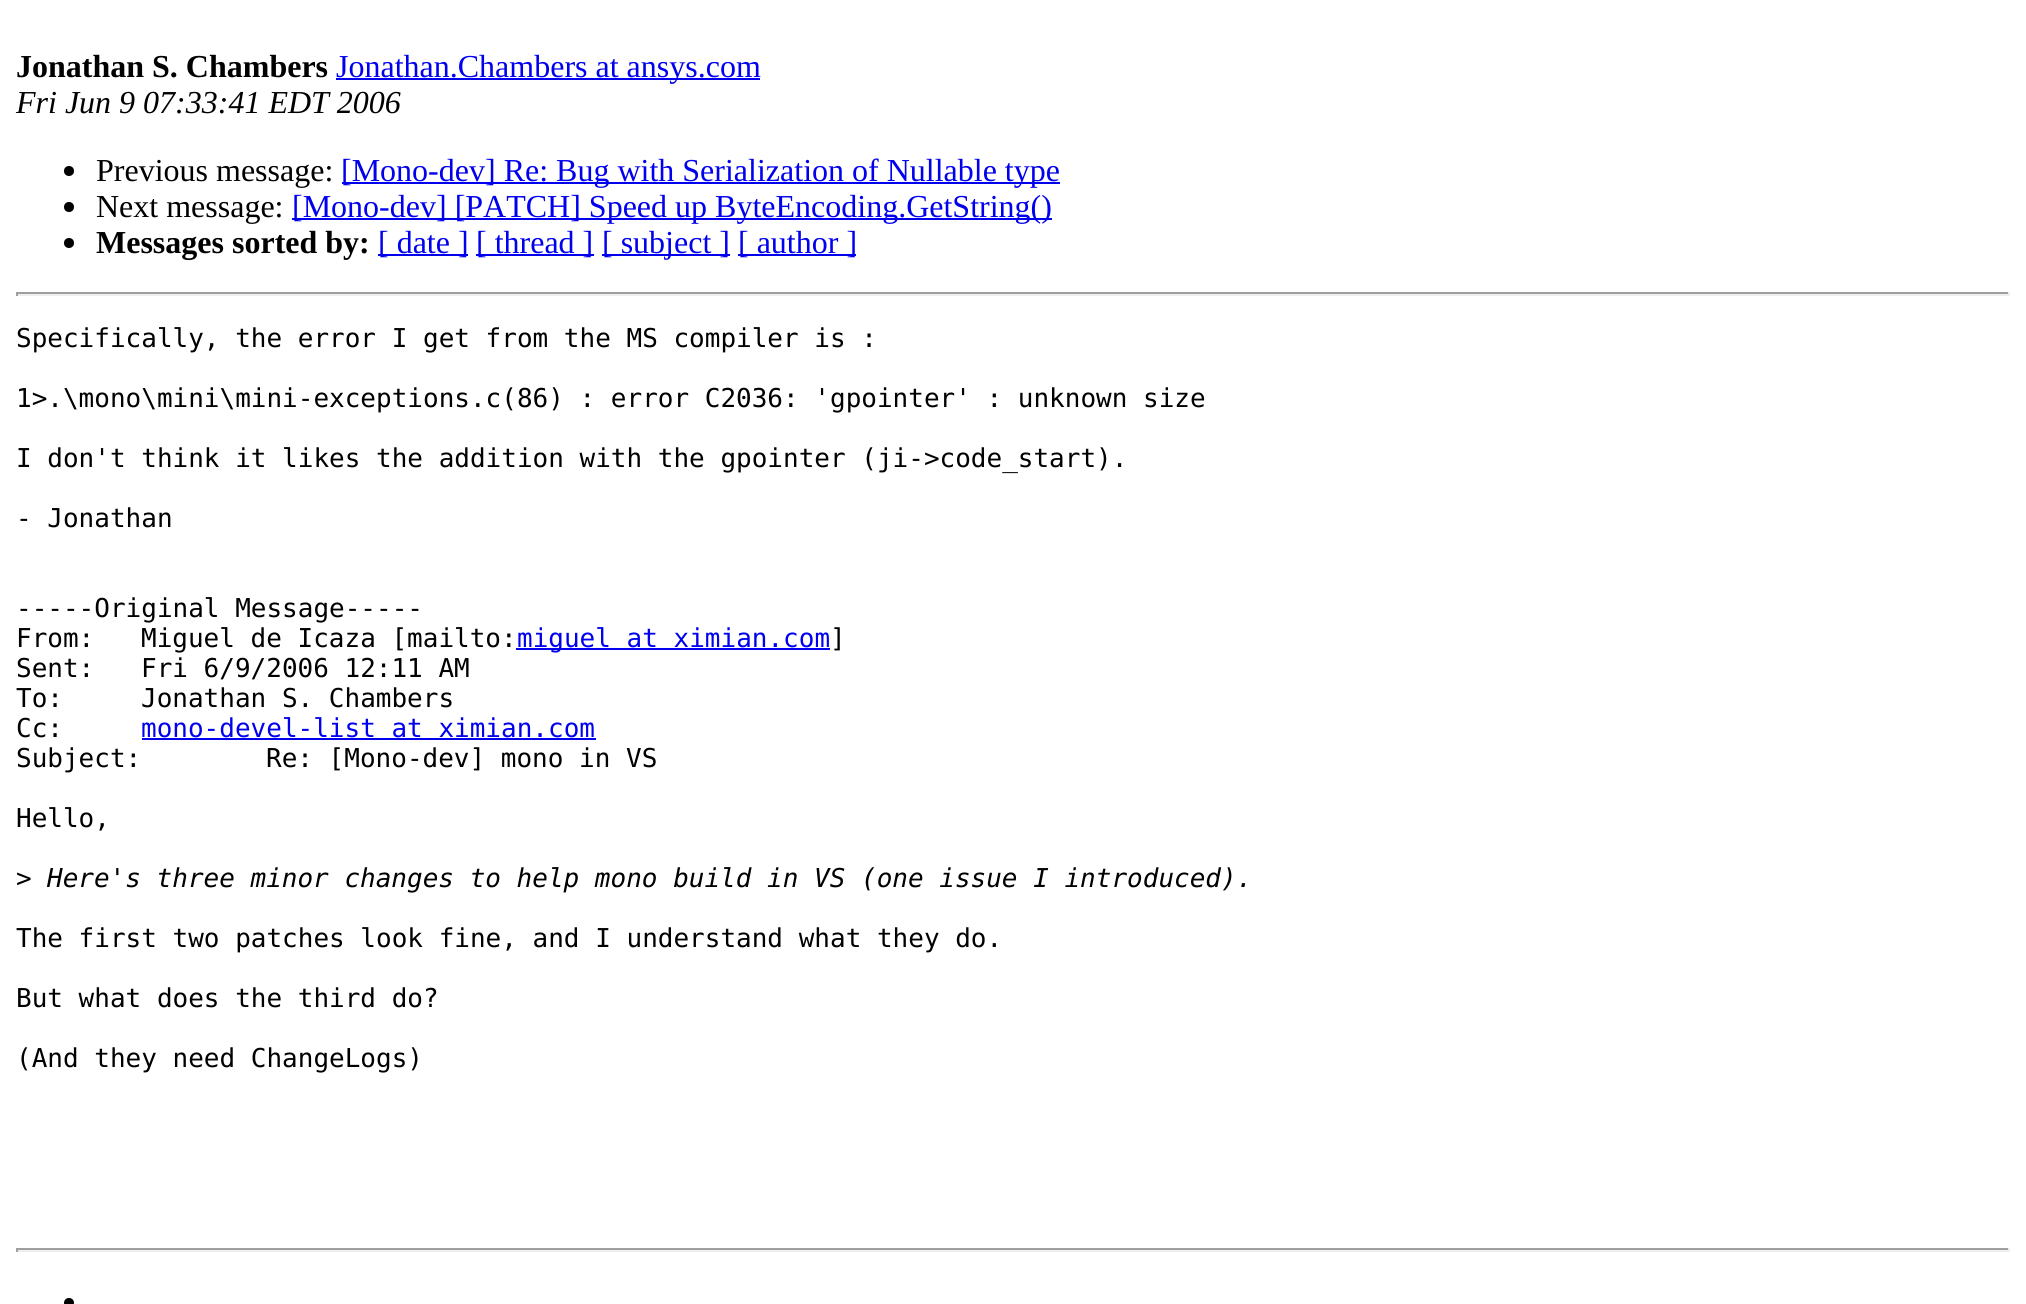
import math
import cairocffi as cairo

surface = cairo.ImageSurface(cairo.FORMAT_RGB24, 2026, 1304)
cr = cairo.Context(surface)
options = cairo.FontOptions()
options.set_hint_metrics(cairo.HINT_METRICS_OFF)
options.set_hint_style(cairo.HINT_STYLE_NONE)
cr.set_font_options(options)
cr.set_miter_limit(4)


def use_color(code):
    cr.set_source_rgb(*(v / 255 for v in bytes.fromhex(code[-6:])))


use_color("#ffffff")
cr.paint()
cr.select_font_face("Liberation Serif", cairo.FONT_SLANT_NORMAL, cairo.FONT_WEIGHT_BOLD)
cr.set_font_size(32)
use_color("#000000")
cr.move_to(16, 77)
cr.show_text("Jonathan S. Chambers")
use_color("#0000ee")
cr.rectangle(336, 78, 424, 2)
cr.fill()
cr.select_font_face("Liberation Serif")
cr.move_to(336, 77)
cr.show_text("Jonathan.Chambers at ansys.com")
cr.select_font_face("Liberation Serif", cairo.FONT_SLANT_ITALIC)
use_color("#000000")
cr.move_to(16, 113)
cr.show_text("Fri Jun 9 07:33:41 EDT 2006")
cr.new_path()
cr.arc(69, 171, 5, 0, 2 * math.pi)
cr.fill()
cr.select_font_face("Liberation Serif")
cr.move_to(96, 181)
cr.show_text("Previous message:")
use_color("#0000ee")
cr.rectangle(342, 182, 718, 2)
cr.fill()
cr.move_to(341, 181)
cr.show_text("[Mono-dev] Re: Bug with Serialization of Nullable type")
use_color("#000000")
cr.new_path()
cr.arc(69, 207, 5, 0, 2 * math.pi)
cr.fill()
cr.move_to(96, 217)
cr.show_text("Next message:")
use_color("#0000ee")
cr.rectangle(292, 218, 760, 2)
cr.fill()
cr.move_to(292, 217)
cr.show_text("[Mono-dev] [PATCH] Speed up ByteEncoding.GetString()")
use_color("#000000")
cr.new_path()
cr.arc(69, 243, 5, 0, 2 * math.pi)
cr.fill()
cr.select_font_face("Liberation Serif", cairo.FONT_SLANT_NORMAL, cairo.FONT_WEIGHT_BOLD)
cr.move_to(96, 253)
cr.show_text("Messages sorted by:")
use_color("#0000ee")
cr.rectangle(378, 254, 90, 2)
cr.fill()
cr.select_font_face("Liberation Serif")
cr.move_to(378, 253)
cr.show_text("[ date ]")
cr.rectangle(476, 254, 118, 2)
cr.fill()
cr.move_to(476, 253)
cr.show_text("[ thread ]")
cr.rectangle(602, 254, 128, 2)
cr.fill()
cr.move_to(602, 253)
cr.show_text("[ subject ]")
cr.rectangle(738, 254, 118, 2)
cr.fill()
cr.move_to(738, 253)
cr.show_text("[ author ]")
use_color("#9f9f9f")
cr.rectangle(16, 292, 1994, 2)
cr.fill()
use_color("#eeeeee")
cr.rectangle(2008, 292, 2, 4)
cr.fill()
cr.rectangle(16, 294, 1994, 2)
cr.fill()
use_color("#9f9f9f")
cr.rectangle(16, 292, 2, 4)
cr.fill()
cr.select_font_face("DejaVu Sans Mono")
cr.set_font_size(26)
use_color("#000000")
cr.move_to(16, 347)
cr.show_text("Specifically, the error I get from the MS compiler is :")
cr.move_to(16, 407)
cr.show_text("1>.\\mono\\mini\\mini-exceptions.c(86) : error C2036: 'gpointer' : unknown size")
cr.move_to(16, 467)
cr.show_text("I don't think it likes the addition with the gpointer (ji->code_start).")
cr.move_to(16, 527)
cr.show_text("- Jonathan")
cr.move_to(16, 617)
cr.show_text("-----Original Message-----")
cr.move_to(16, 647)
cr.show_text("From:")
cr.move_to(141, 647)
cr.show_text("Miguel de Icaza [mailto:")
use_color("#0000ee")
cr.rectangle(516, 648, 314, 2)
cr.fill()
cr.move_to(517, 647)
cr.show_text("miguel at ximian.com")
use_color("#000000")
cr.move_to(830, 647)
cr.show_text("]")
cr.move_to(16, 677)
cr.show_text("Sent:")
cr.move_to(141, 677)
cr.show_text("Fri 6/9/2006 12:11 AM")
cr.move_to(16, 707)
cr.show_text("To:")
cr.move_to(141, 707)
cr.show_text("Jonathan S. Chambers")
cr.move_to(16, 737)
cr.show_text("Cc:")
use_color("#0000ee")
cr.move_to(141, 737)
cr.show_text("mono-devel-list at ximian.com")
cr.rectangle(142, 738, 454, 2)
cr.fill()
use_color("#000000")
cr.move_to(16, 767)
cr.show_text("Subject:")
cr.move_to(266, 767)
cr.show_text("Re: [Mono-dev] mono in VS")
cr.move_to(16, 827)
cr.show_text("Hello,")
cr.move_to(16, 887)
cr.show_text(">")
cr.select_font_face("DejaVu Sans Mono", cairo.FONT_SLANT_ITALIC)
cr.move_to(47, 887)
cr.show_text("Here's three minor changes to help mono build in VS (one issue I introduced).")
cr.select_font_face("DejaVu Sans Mono")
cr.move_to(16, 947)
cr.show_text("The first two patches look fine, and I understand what they do.")
cr.move_to(16, 1007)
cr.show_text("But what does the third do?")
cr.move_to(16, 1067)
cr.show_text("(And they need ChangeLogs)")
use_color("#9f9f9f")
cr.rectangle(16, 1248, 1994, 2)
cr.fill()
use_color("#eeeeee")
cr.rectangle(2008, 1248, 2, 4)
cr.fill()
cr.rectangle(16, 1250, 1994, 2)
cr.fill()
use_color("#9f9f9f")
cr.rectangle(16, 1248, 2, 4)
cr.fill()
use_color("#000000")
cr.arc(69, 1303, 5, 0, 2 * math.pi)
cr.fill()
surface.write_to_png("result.png")
